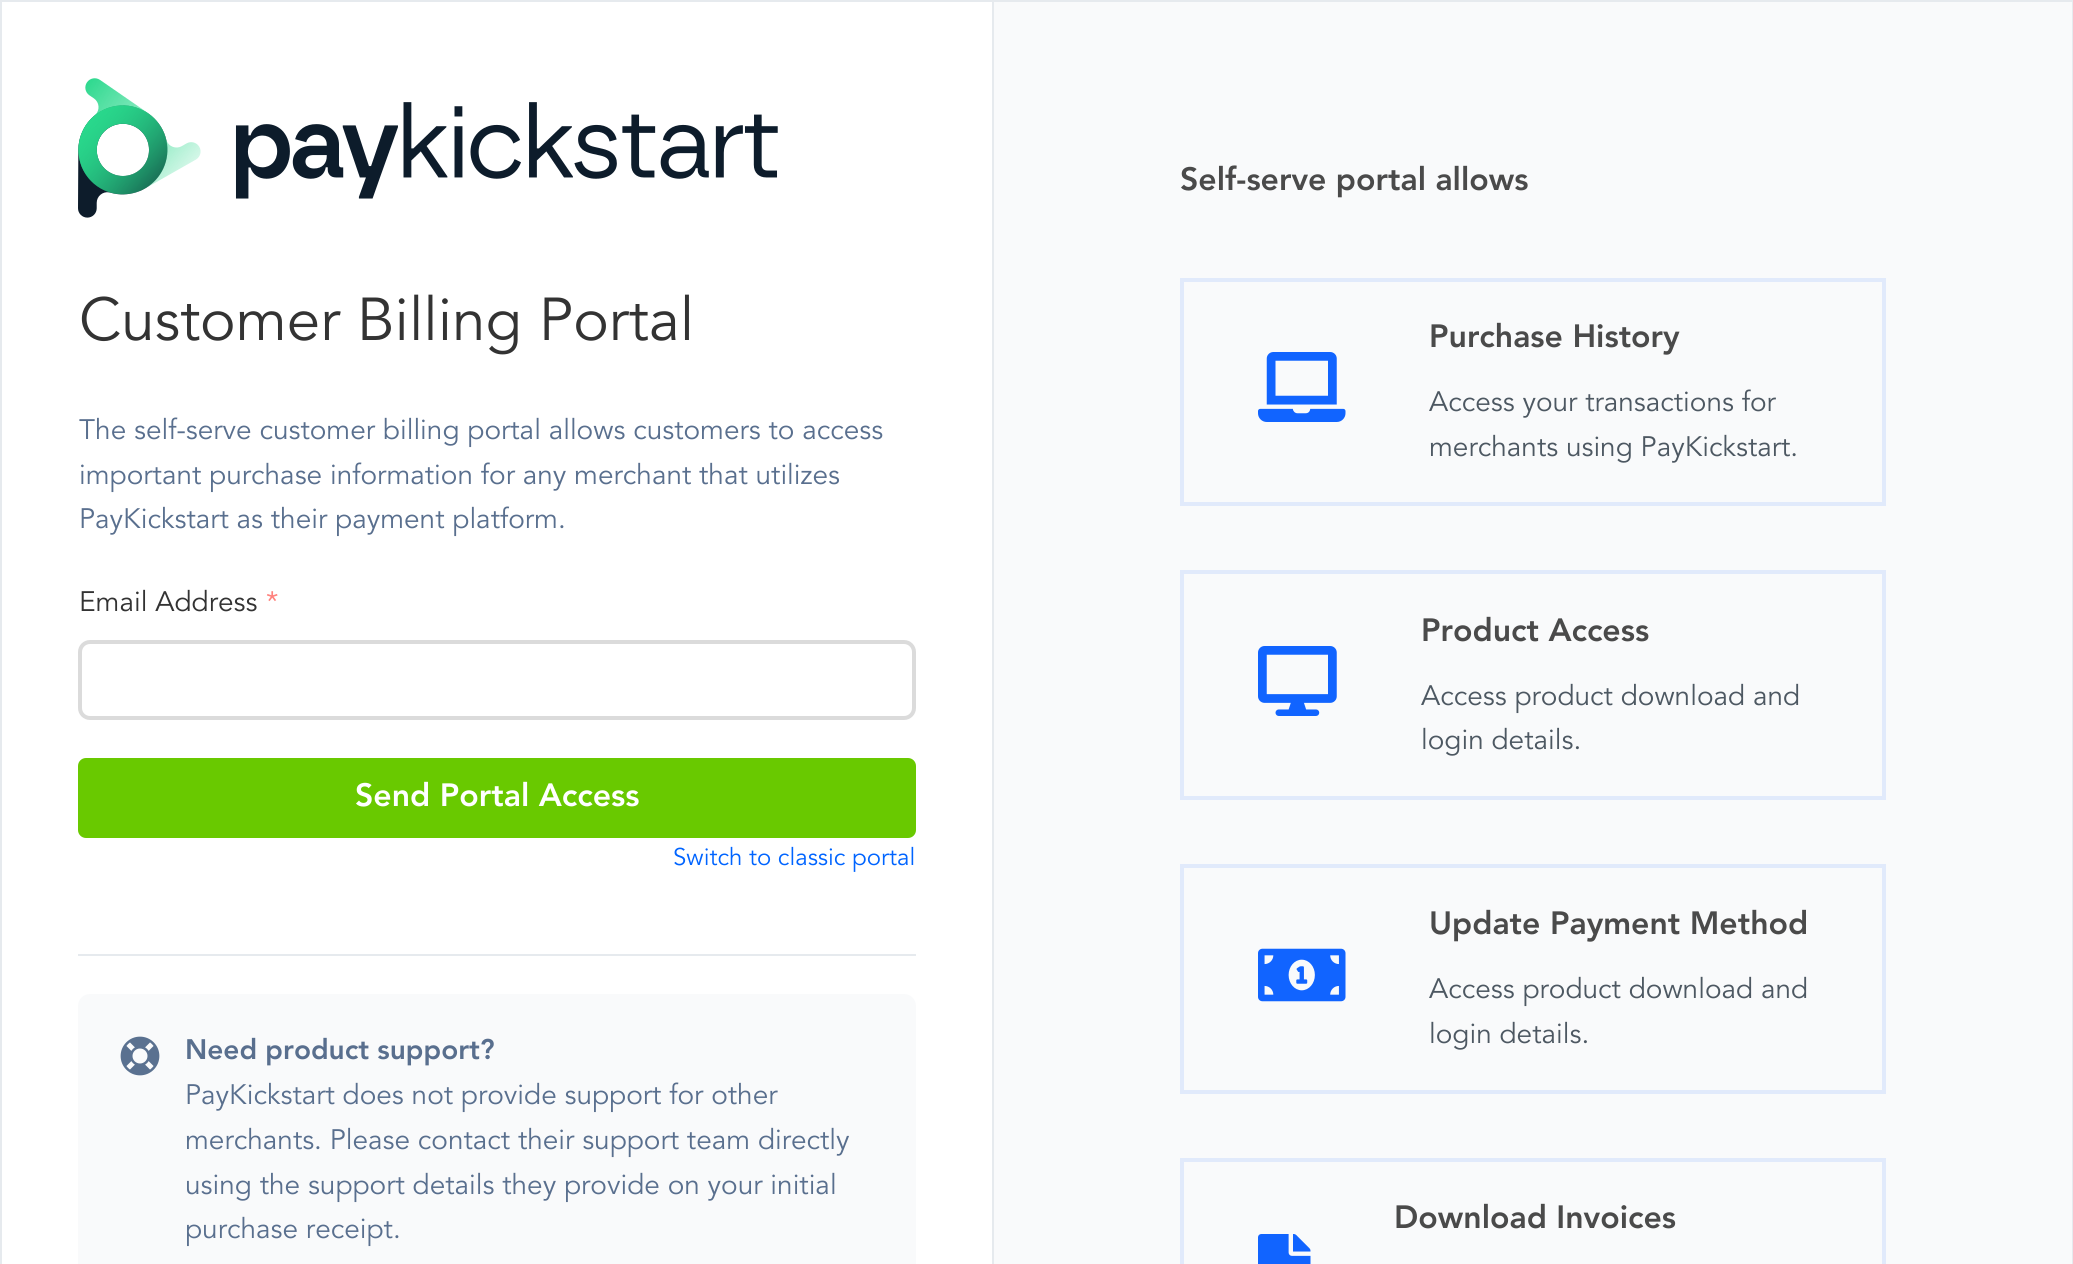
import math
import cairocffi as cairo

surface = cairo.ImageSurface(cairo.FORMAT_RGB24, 2073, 1264)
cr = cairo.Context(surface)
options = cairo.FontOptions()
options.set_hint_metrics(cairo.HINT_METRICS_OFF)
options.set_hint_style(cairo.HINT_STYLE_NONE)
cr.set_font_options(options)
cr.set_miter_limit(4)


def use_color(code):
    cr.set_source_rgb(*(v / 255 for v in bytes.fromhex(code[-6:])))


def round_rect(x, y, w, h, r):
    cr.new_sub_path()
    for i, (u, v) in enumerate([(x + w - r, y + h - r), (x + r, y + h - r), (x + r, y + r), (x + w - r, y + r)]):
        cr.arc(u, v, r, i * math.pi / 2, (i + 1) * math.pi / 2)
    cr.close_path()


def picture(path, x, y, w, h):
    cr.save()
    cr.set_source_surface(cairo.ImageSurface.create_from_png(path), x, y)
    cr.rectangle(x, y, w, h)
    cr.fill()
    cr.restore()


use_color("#ffffff")
cr.paint()
cr.rectangle(1, 1, 992, 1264)
use_color("#e6eaee")
cr.stroke()
picture("img1.png", 78, 78, 700, 140)
cr.select_font_face("Avenir")
cr.set_font_size(60)
use_color("#333333")
cr.move_to(79, 340)
cr.show_text("Customer Billing Portal")
cr.set_font_size(28)
use_color("#596f8e")
cr.move_to(79, 439)
cr.show_text("The self-serve customer billing portal allows customers to access")
cr.move_to(79, 484)
cr.show_text("important purchase information for any merchant that utilizes")
cr.move_to(79, 528)
cr.show_text("PayKickstart as their payment platform.")
use_color("#333333")
cr.move_to(79, 611)
cr.show_text("Email Address")
use_color("#ff827d")
cr.move_to(266, 611)
cr.show_text("*")
round_rect(80, 642, 834, 76, 10)
use_color("#dbdbdb")
cr.set_line_width(4)
cr.stroke()
use_color("#69c900")
round_rect(78, 758, 838, 80, 8)
cr.fill()
cr.select_font_face("Avenir Black")
cr.set_font_size(32)
use_color("#ffffff")
cr.move_to(355, 806)
cr.show_text("Send Portal Access")
cr.select_font_face("Avenir")
cr.set_font_size(24)
use_color("#0064ff")
cr.move_to(673, 865)
cr.show_text("Switch to classic portal")
use_color("#e6eaee")
cr.rectangle(78, 954, 838, 2)
cr.fill()
use_color("#f9fafb")
round_rect(78, 994, 838, 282, 12)
cr.fill()
picture("img2.png", 120, 1036, 40, 40)
cr.select_font_face("Avenir Black")
cr.set_font_size(28)
use_color("#596f8e")
cr.move_to(185, 1059)
cr.show_text("Need product support?")
cr.select_font_face("Avenir")
cr.move_to(185, 1104)
cr.show_text("PayKickstart does not provide support for other")
cr.move_to(185, 1149)
cr.show_text("merchants. Please contact their support team directly")
cr.move_to(185, 1194)
cr.show_text("using the support details they provide on your initial")
cr.move_to(185, 1238)
cr.show_text("purchase receipt.")
use_color("#f9fafb")
cr.rectangle(994, 2, 1078, 1262)
cr.fill()
use_color("#e6eaee")
cr.rectangle(994, 0, 1079, 2)
cr.fill()
cr.rectangle(2072, 0, 1, 1264)
cr.fill()
cr.select_font_face("Avenir Black")
cr.set_font_size(32)
use_color("#4a4a4a")
cr.move_to(1180, 190)
cr.show_text("Self-serve portal allows")
cr.rectangle(1182, 280, 702, 224)
use_color("#e1eafb")
cr.stroke()
picture("img3.png", 1258, 352, 88, 70)
use_color("#4a4a4a")
cr.move_to(1429, 347)
cr.show_text("Purchase History")
cr.select_font_face("Avenir")
cr.set_font_size(28)
use_color("#4d5862")
cr.move_to(1429, 411)
cr.show_text("Access your transactions for")
cr.move_to(1429, 456)
cr.show_text("merchants using PayKickstart.")
cr.rectangle(1182, 572, 702, 226)
use_color("#e1eafb")
cr.stroke()
picture("img4.png", 1258, 646, 79, 70)
cr.select_font_face("Avenir Black")
cr.set_font_size(32)
use_color("#4a4a4a")
cr.move_to(1421, 641)
cr.show_text("Product Access")
cr.select_font_face("Avenir")
cr.set_font_size(28)
use_color("#4d5862")
cr.move_to(1421, 705)
cr.show_text("Access product download and")
cr.move_to(1421, 749)
cr.show_text("login details.")
cr.rectangle(1182, 866, 702, 226)
use_color("#e1eafb")
cr.stroke()
picture("img5.png", 1258, 948, 88, 54)
cr.select_font_face("Avenir Black")
cr.set_font_size(32)
use_color("#4a4a4a")
cr.move_to(1429, 934)
cr.show_text("Update Payment Method")
cr.select_font_face("Avenir")
cr.set_font_size(28)
use_color("#4d5862")
cr.move_to(1429, 998)
cr.show_text("Access product download and")
cr.move_to(1429, 1043)
cr.show_text("login details.")
cr.rectangle(1182, 1160, 702, 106)
use_color("#e1eafb")
cr.stroke()
cr.select_font_face("Avenir Black")
cr.set_font_size(32)
use_color("#4a4a4a")
cr.move_to(1394, 1228)
cr.show_text("Download Invoices")
picture("img6.png", 1258, 1234, 53, 30)
surface.write_to_png("result.png")
